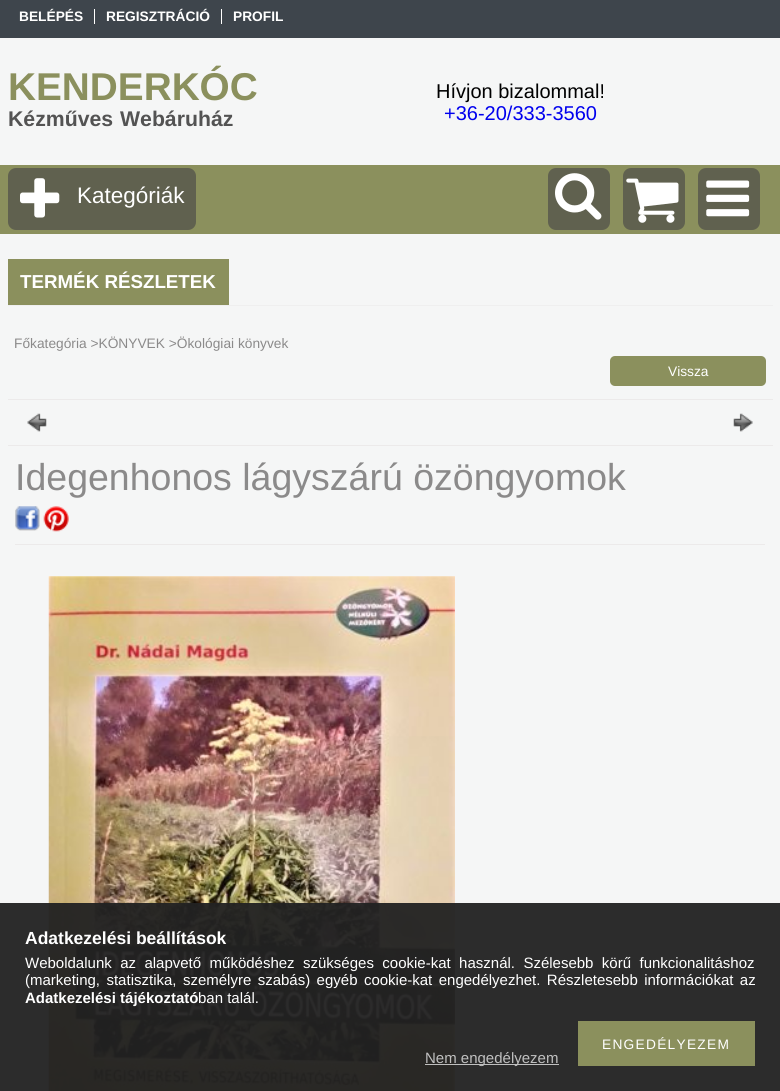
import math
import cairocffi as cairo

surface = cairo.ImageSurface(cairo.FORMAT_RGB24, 780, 1091)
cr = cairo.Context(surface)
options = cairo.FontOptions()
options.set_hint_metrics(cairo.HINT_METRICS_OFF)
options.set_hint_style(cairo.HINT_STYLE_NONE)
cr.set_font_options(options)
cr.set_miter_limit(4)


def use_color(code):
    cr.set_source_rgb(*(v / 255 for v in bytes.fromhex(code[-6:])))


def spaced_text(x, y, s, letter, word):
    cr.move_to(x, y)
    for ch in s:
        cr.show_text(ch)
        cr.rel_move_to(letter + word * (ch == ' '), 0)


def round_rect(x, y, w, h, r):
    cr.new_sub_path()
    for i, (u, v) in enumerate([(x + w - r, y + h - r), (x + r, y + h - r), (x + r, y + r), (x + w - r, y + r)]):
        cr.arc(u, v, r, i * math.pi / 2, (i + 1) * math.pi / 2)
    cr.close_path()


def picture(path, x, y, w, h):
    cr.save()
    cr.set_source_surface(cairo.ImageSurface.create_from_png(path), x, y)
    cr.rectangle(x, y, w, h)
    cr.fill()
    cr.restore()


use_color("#f5f6f6")
cr.paint()
use_color("#3e454c")
cr.rectangle(0, 0, 780, 38)
cr.fill()
cr.select_font_face("Liberation Sans", cairo.FONT_SLANT_NORMAL, cairo.FONT_WEIGHT_BOLD)
cr.set_font_size(13.75)
use_color("#ffffff")
cr.move_to(19, 21)
cr.show_text("BELÉPÉS")
cr.rectangle(94, 9, 1, 15)
cr.fill()
cr.move_to(106, 21)
cr.show_text("REGISZTRÁCIÓ")
cr.rectangle(221, 9, 1, 15)
cr.fill()
cr.move_to(233, 21)
cr.show_text("PROFIL")
cr.set_font_size(38.75)
use_color("#8b905d")
cr.move_to(8, 100)
cr.show_text("KENDERKÓC")
cr.set_font_size(21.25)
use_color("#535353")
cr.move_to(8, 126)
cr.show_text("Kézműves")
cr.move_to(120, 126)
cr.show_text("Webáruház")
cr.select_font_face("Liberation Sans")
cr.set_font_size(20)
use_color("#000000")
cr.move_to(436, 98)
cr.show_text("Hívjon bizalommal!")
use_color("#0000ee")
cr.move_to(444, 120)
cr.show_text("+36-20/333-3560")
use_color("#8b905d")
cr.rectangle(0, 165, 780, 69)
cr.fill()
use_color("#60614f")
round_rect(8, 168, 188, 62, 8)
cr.fill()
picture("img1.png", 20, 178, 40, 40)
cr.set_font_size(22.5)
use_color("#ffffff")
cr.move_to(77, 203)
cr.show_text("Kategóriák")
use_color("#60614f")
round_rect(548, 168, 62, 62, 8)
cr.fill()
picture("img2.png", 555, 173, 47, 47)
round_rect(623, 168, 62, 62, 8)
cr.fill()
picture("img3.png", 626, 178, 53, 45)
round_rect(698, 168, 62, 62, 8)
cr.fill()
picture("img4.png", 706, 180, 44, 37)
use_color("#efefef")
cr.rectangle(8, 305, 765, 1)
cr.fill()
use_color("#8b905d")
cr.rectangle(8, 259, 221, 46)
cr.fill()
cr.select_font_face("Liberation Sans", cairo.FONT_SLANT_NORMAL, cairo.FONT_WEIGHT_BOLD)
cr.set_font_size(18.75)
use_color("#ffffff")
cr.move_to(20, 288)
cr.show_text("TERMÉK RÉSZLETEK")
cr.select_font_face("Liberation Sans")
cr.set_font_size(13.75)
use_color("#8b8a8a")
cr.move_to(14, 348)
cr.show_text("Főkategória >KÖNYVEK >Ökológiai könyvek")
use_color("#8b905d")
round_rect(610, 356, 156, 30, 5)
cr.fill()
use_color("#ffffff")
cr.move_to(668, 376)
cr.show_text("Vissza")
use_color("#eceaea")
cr.rectangle(8, 399, 765, 1)
cr.fill()
picture("img5.png", 27, 413, 20, 19)
picture("img6.png", 733, 413, 20, 19)
cr.rectangle(8, 445, 765, 1)
cr.fill()
cr.rectangle(15, 544, 750, 1)
cr.fill()
cr.set_font_size(37.5)
use_color("#8b8a8a")
cr.move_to(15, 490)
cr.show_text("Idegenhonos lágyszárú özöngyomok")
picture("img7.png", 15, 506, 25, 25)
picture("img8.png", 43, 506, 26, 26)
picture("img9.png", 48, 576, 407, 515)
cr.set_source_rgba(0.133, 0.133, 0.133, 0.95)
cr.rectangle(0, 903, 780, 188)
cr.fill()
cr.select_font_face("Liberation Sans", cairo.FONT_SLANT_NORMAL, cairo.FONT_WEIGHT_BOLD)
cr.set_font_size(17.5)
use_color("#ffffff")
cr.move_to(25, 944)
cr.show_text("Adatkezelési beállítások")
cr.select_font_face("Liberation Sans")
cr.set_font_size(15)
spaced_text(25, 968, "Weboldalunk az alapvető működéshez szükséges cookie-kat használ. Szélesebb körű funkcionalitáshoz", 0, 4.25)
spaced_text(25, 985, "(marketing, statisztika, személyre szabás) egyéb cookie-kat engedélyezhet. Részletesebb információkat az", 0, 2.25)
cr.select_font_face("Liberation Sans", cairo.FONT_SLANT_NORMAL, cairo.FONT_WEIGHT_BOLD)
cr.move_to(25, 1003)
cr.show_text("Adatkezelési tájékoztató")
cr.select_font_face("Liberation Sans")
cr.move_to(198, 1003)
cr.show_text("ban talál.")
use_color("#8b905d")
cr.rectangle(578, 1021, 177, 45)
cr.fill()
cr.set_font_size(13.75)
use_color("#ffffff")
spaced_text(602, 1049, "ENGEDÉLYEZEM", 1.25, 0)
cr.set_source_rgba(1, 1, 1, 0.7)
cr.rectangle(425, 1064, 134, 1)
cr.fill()
cr.set_font_size(15)
use_color("#c0c0c0")
cr.move_to(425, 1063)
cr.show_text("Nem engedélyezem")
surface.write_to_png("result.png")
